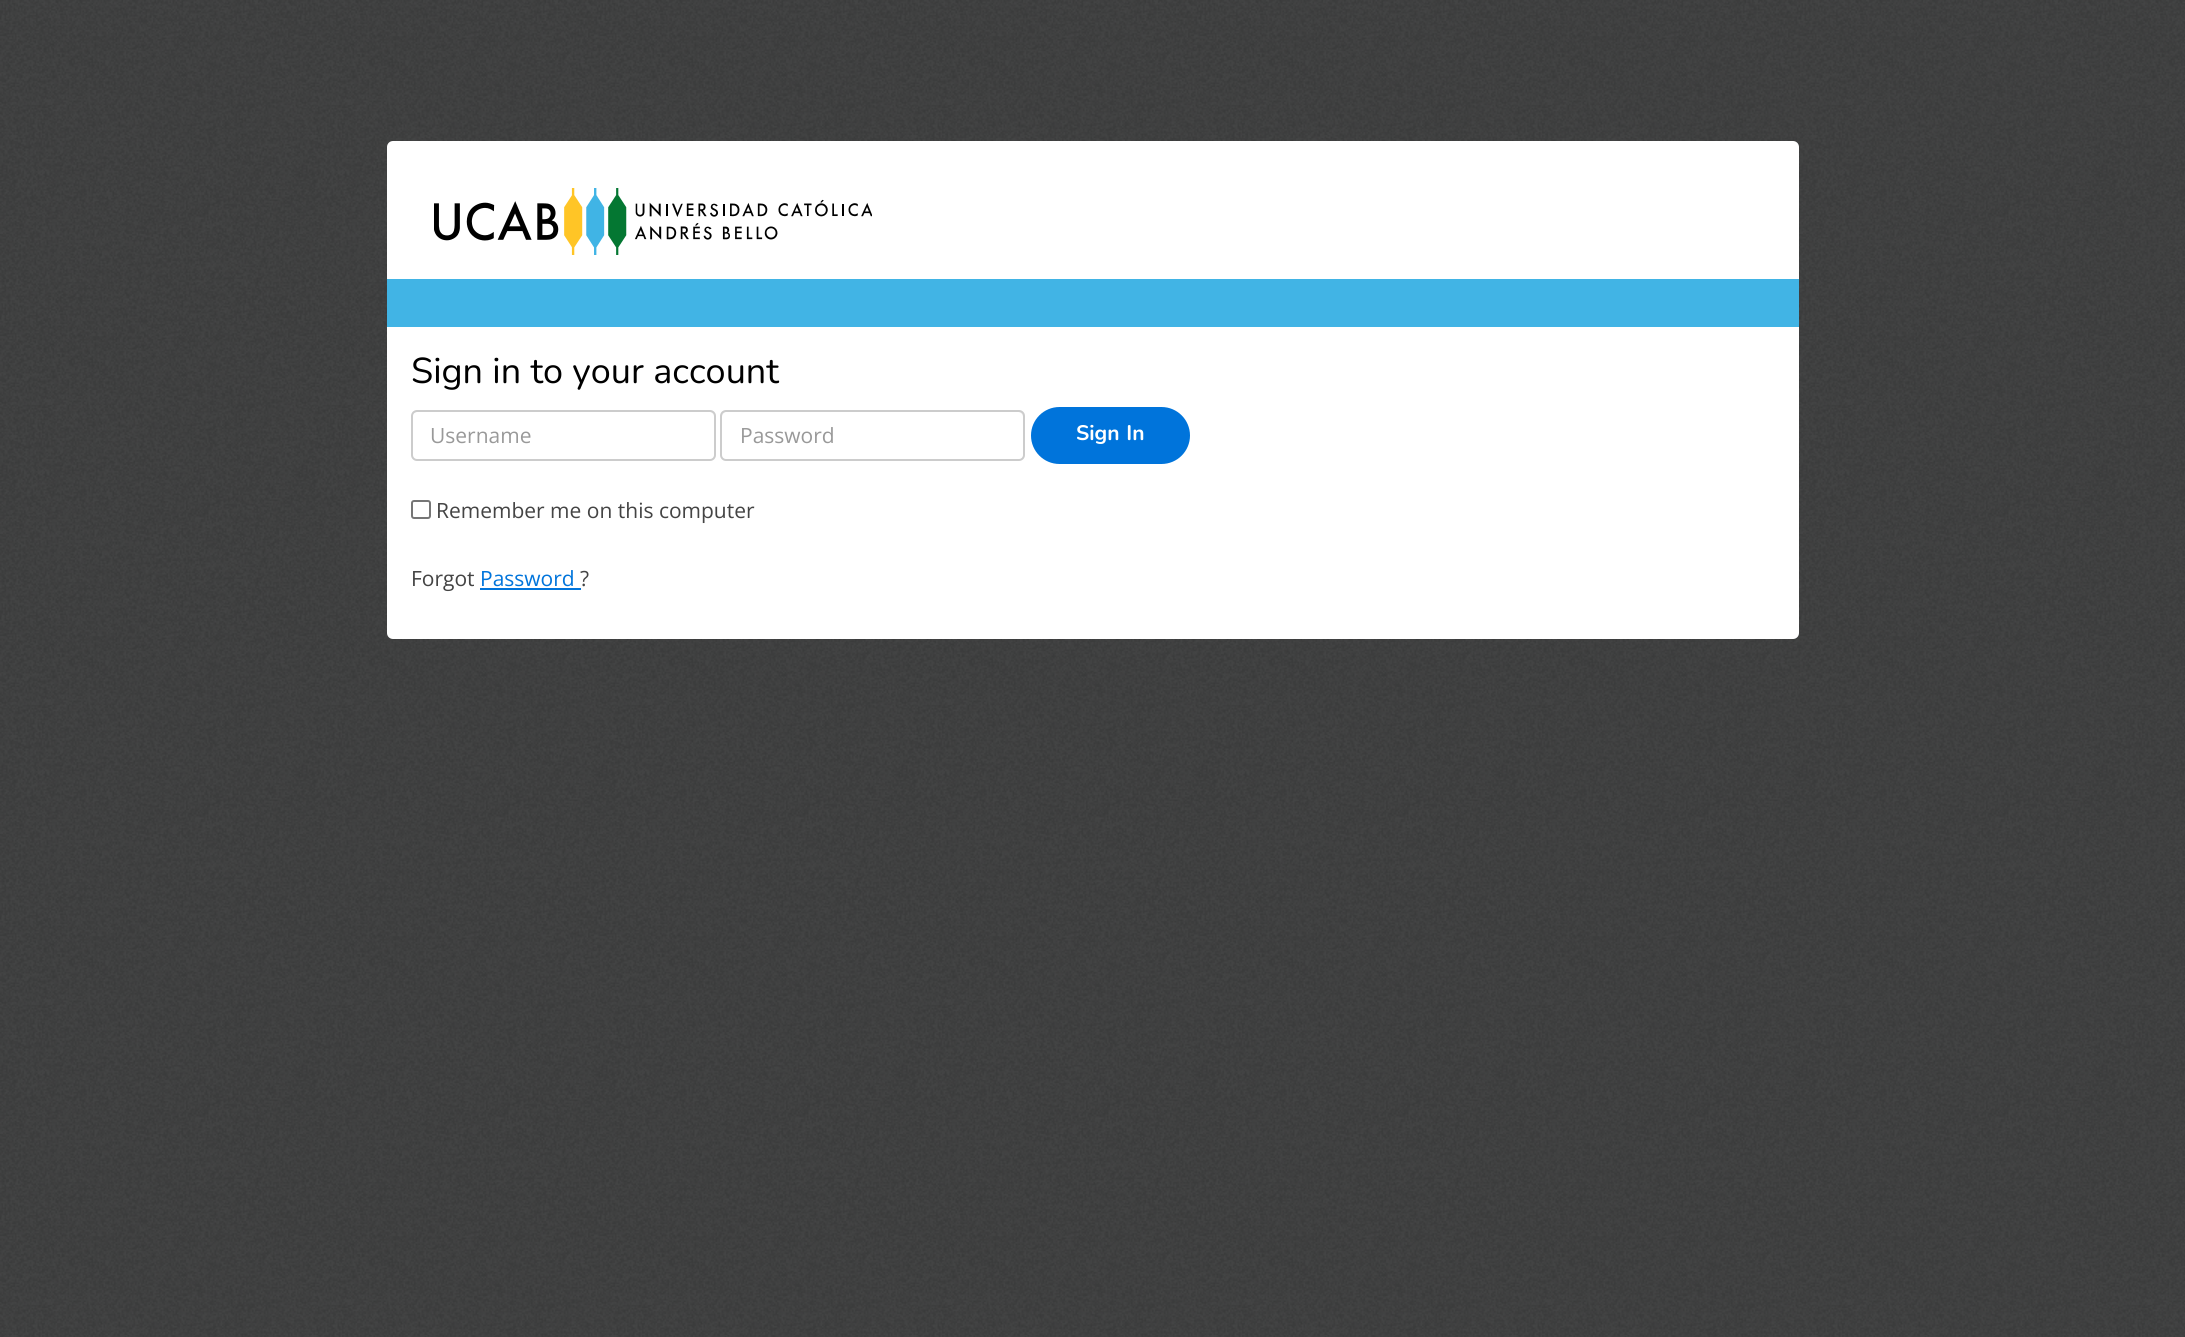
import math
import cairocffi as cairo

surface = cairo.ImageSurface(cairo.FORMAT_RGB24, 2185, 1337)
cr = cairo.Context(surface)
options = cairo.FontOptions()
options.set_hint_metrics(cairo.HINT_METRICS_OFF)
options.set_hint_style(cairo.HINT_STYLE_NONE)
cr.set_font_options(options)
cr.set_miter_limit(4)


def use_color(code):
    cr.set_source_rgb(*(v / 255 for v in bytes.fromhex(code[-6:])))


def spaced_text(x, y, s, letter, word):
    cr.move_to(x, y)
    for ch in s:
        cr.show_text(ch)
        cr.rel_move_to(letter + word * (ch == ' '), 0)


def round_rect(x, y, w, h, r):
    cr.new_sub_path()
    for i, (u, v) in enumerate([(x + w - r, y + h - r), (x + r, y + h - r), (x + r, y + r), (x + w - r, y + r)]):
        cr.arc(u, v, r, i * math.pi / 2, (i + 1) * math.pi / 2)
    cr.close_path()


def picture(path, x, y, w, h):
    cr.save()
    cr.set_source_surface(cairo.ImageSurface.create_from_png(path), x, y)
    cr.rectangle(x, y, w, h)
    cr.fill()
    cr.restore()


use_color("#ffffff")
cr.paint()
picture("img1.png", 0, 0, 2185, 1337)
use_color("#ffffff")
round_rect(387, 141, 1412, 498, 6)
cr.fill()
picture("img2.png", 434, 188, 438, 67)
use_color("#41b4e5")
cr.rectangle(387, 279, 1412, 48)
cr.fill()
cr.select_font_face("Nunito")
cr.set_font_size(36)
use_color("#000000")
cr.move_to(411, 383)
cr.show_text("Sign in to your account")
use_color("#ececec")
cr.new_path()
cr.move_to(417, 412)
cr.line_to(710, 412)
cr.curve_to(712, 412, 714, 415, 714, 417)
cr.curve_to(714, 414, 712, 411, 709, 411)
cr.line_to(417, 411)
cr.curve_to(415, 411, 414, 413, 413, 414)
cr.curve_to(414, 413, 416, 412, 417, 412)
cr.close_path()
cr.fill()
round_rect(412, 411, 303, 49, 5)
use_color("#cccccc")
cr.stroke()
cr.select_font_face("Open Sans")
cr.set_font_size(21)
use_color("#999999")
cr.move_to(430, 443)
cr.show_text("Username")
use_color("#ececec")
cr.new_path()
cr.move_to(726, 412)
cr.line_to(1018, 412)
cr.curve_to(1021, 412, 1023, 415, 1023, 417)
cr.line_to(1023, 416)
cr.curve_to(1023, 413, 1021, 411, 1018, 411)
cr.line_to(727, 411)
cr.curve_to(724, 411, 722, 413, 722, 416)
cr.line_to(722, 417)
cr.curve_to(722, 415, 724, 412, 726, 412)
cr.close_path()
cr.fill()
round_rect(721, 411, 303, 49, 5)
use_color("#cccccc")
cr.stroke()
use_color("#999999")
cr.move_to(740, 443)
cr.show_text("Password")
use_color("#0074db")
round_rect(1031, 407, 159, 57, 28.5)
cr.fill()
cr.select_font_face("Nunito", cairo.FONT_SLANT_NORMAL, cairo.FONT_WEIGHT_BOLD)
use_color("#ffffff")
spaced_text(1076, 440, "Sign In", 0, 1)
round_rect(412, 501, 18, 17, 2)
use_color("#767676")
cr.stroke()
cr.select_font_face("Open Sans")
use_color("#444444")
cr.move_to(436, 518)
cr.show_text("Remember me on this computer")
cr.move_to(411, 586)
cr.show_text("Forgot")
use_color("#0074db")
cr.move_to(480, 586)
cr.show_text("Password")
cr.rectangle(480, 588, 101, 2)
cr.fill()
use_color("#444444")
cr.move_to(580, 586)
cr.show_text("?")
surface.write_to_png("result.png")
